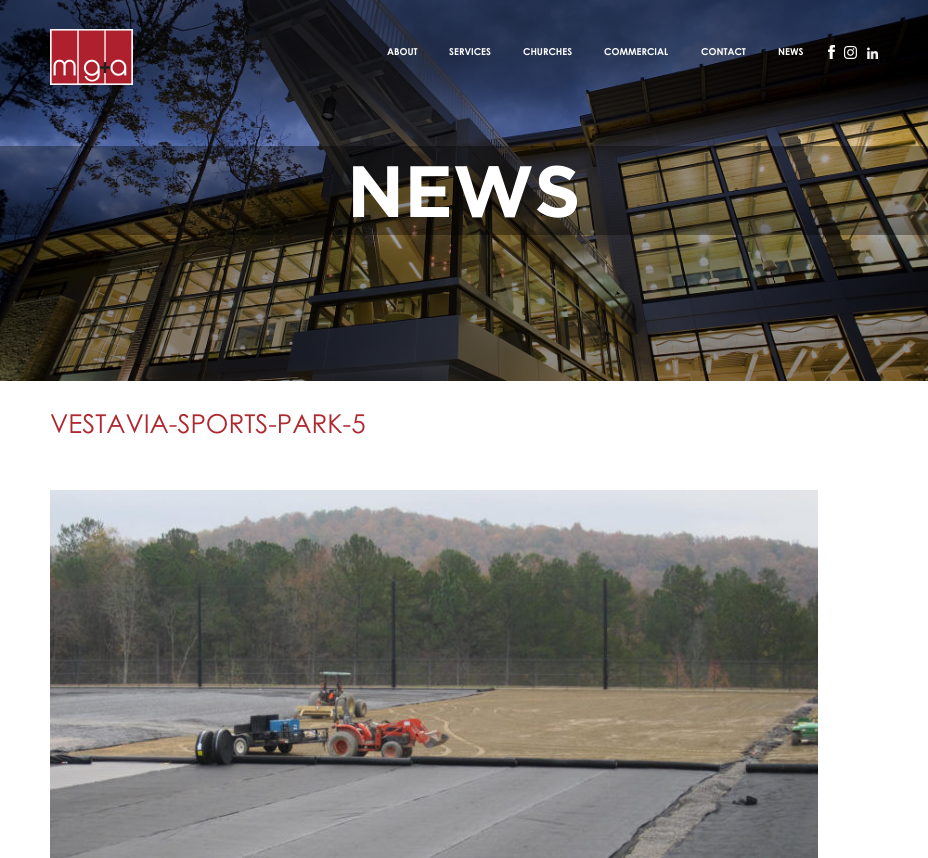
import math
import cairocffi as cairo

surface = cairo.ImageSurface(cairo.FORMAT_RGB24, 928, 858)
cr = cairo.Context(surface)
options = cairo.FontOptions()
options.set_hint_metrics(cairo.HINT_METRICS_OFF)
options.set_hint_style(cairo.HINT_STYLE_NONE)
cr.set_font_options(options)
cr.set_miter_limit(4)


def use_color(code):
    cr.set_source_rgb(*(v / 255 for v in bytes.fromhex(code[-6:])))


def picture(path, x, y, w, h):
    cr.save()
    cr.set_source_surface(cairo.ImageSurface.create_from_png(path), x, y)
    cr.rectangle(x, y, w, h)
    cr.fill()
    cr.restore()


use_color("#ffffff")
cr.paint()
picture("img5.png", 0, 0, 928, 381)
gradient = cairo.LinearGradient(464, 0, 464, 160)
gradient.add_color_stop_rgba(0, 0, 0, 0, 0.45)
gradient.add_color_stop_rgba(0.28, 0, 0, 0, 0.45)
gradient.add_color_stop_rgba(0.38, 0, 0, 0, 0.43)
gradient.add_color_stop_rgba(0.51, 0, 0, 0, 0.34)
gradient.add_color_stop_rgba(0.71, 0, 0, 0, 0.13)
gradient.add_color_stop_rgba(0.79, 0, 0, 0, 0.06)
gradient.add_color_stop_rgba(0.88, 0, 0, 0, 0.02)
gradient.add_color_stop_rgba(1, 0, 0, 0, 0)
cr.set_source(gradient)
cr.rectangle(0, 0, 928, 140)
cr.fill()
picture("img1.png", 50, 29, 83, 56)
cr.select_font_face("Century Gothic", cairo.FONT_SLANT_NORMAL, cairo.FONT_WEIGHT_BOLD)
cr.set_font_size(9.5)
use_color("#ffffff")
cr.move_to(387, 55)
cr.show_text("ABOUT")
cr.move_to(449, 55)
cr.show_text("SERVICES")
cr.move_to(523, 55)
cr.show_text("CHURCHES")
cr.move_to(604, 55)
cr.show_text("COMMERCIAL")
cr.move_to(701, 55)
cr.show_text("CONTACT")
cr.move_to(778, 55)
cr.show_text("NEWS")
picture("img2.png", 828, 45, 7, 14)
picture("img3.png", 844, 45, 13, 14)
picture("img4.png", 867, 47, 11, 12)
cr.set_source_rgba(0, 0, 0, 0.35)
cr.rectangle(0, 146, 928, 89)
cr.fill()
cr.select_font_face("Gotham", cairo.FONT_SLANT_NORMAL, cairo.FONT_WEIGHT_BOLD)
cr.set_font_size(72.5)
use_color("#ffffff")
cr.move_to(347, 217)
cr.show_text("NEWS")
cr.select_font_face("Century Gothic")
cr.set_font_size(26)
use_color("#af282f")
cr.move_to(50, 433)
cr.show_text("VESTAVIA-SPORTS-PARK-5")
picture("img6.png", 50, 490, 768, 368)
surface.write_to_png("result.png")
